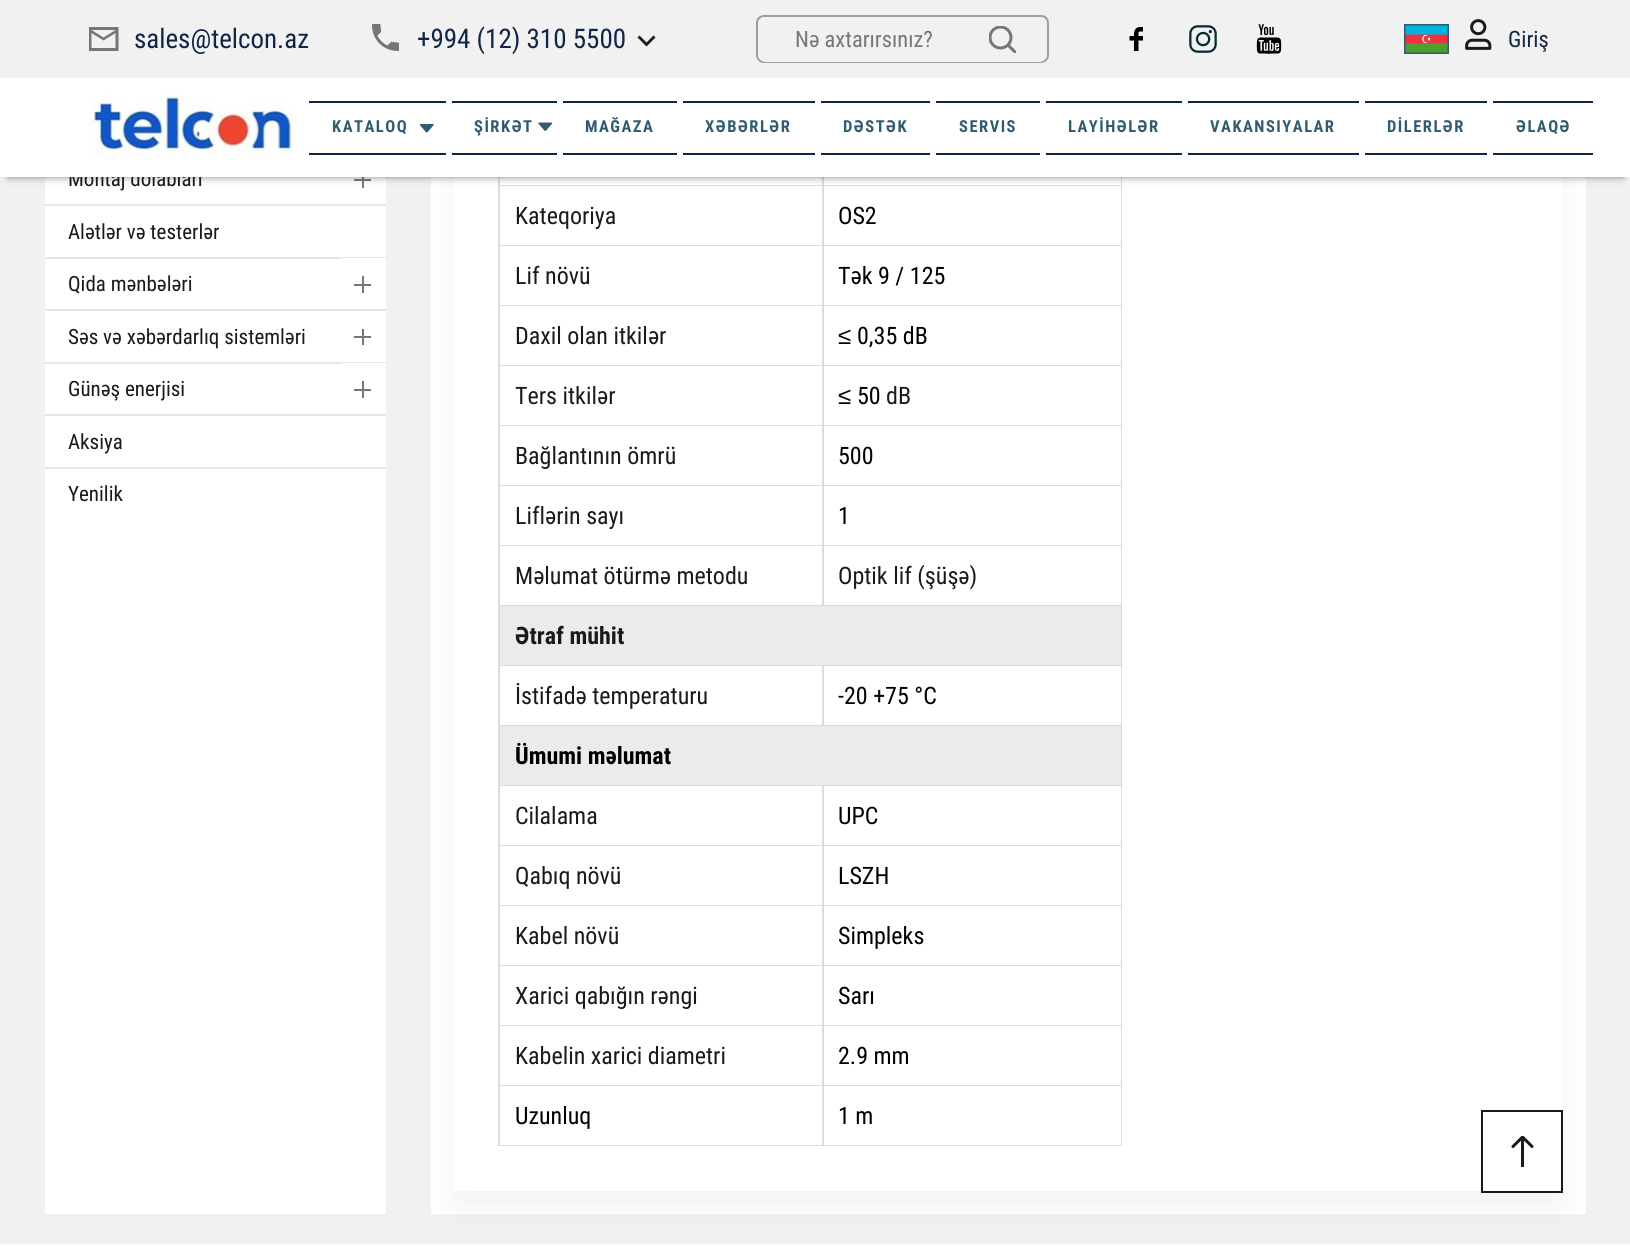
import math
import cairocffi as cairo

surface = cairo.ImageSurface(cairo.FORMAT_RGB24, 1630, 1259)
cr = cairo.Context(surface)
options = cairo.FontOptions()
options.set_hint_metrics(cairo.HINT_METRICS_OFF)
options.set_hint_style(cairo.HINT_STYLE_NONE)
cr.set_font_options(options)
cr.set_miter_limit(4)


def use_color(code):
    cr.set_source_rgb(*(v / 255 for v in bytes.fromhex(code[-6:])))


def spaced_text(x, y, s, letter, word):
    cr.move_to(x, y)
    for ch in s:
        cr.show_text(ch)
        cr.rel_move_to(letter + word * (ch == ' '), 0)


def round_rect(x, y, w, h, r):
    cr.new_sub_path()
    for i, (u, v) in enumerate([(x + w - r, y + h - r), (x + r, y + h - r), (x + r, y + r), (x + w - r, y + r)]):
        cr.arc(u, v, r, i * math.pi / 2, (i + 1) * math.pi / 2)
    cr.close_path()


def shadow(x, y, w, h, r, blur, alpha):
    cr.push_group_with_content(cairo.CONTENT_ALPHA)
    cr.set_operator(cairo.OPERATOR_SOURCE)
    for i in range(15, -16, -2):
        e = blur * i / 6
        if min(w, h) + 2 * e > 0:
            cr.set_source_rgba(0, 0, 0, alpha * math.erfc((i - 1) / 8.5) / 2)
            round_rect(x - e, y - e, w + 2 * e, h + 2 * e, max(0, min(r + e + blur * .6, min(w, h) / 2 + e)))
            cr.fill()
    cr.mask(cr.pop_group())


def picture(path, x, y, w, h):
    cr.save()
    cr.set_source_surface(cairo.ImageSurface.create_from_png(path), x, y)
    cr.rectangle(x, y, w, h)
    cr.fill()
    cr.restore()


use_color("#ffffff")
cr.paint()
use_color("#f1f1f1")
cr.rectangle(0, 177, 1630, 1067)
cr.fill()
use_color("#ffffff")
cr.rectangle(45, 177, 341, 1037)
cr.fill()
use_color("#767676")
cr.rectangle(362, 171, 2, 17)
cr.fill()
cr.rectangle(354, 179, 17, 2)
cr.fill()
use_color("#ffffff")
cr.rectangle(431, 177, 1155, 1037)
cr.fill()
cr.save()
cr.set_fill_rule(cairo.FILL_RULE_EVEN_ODD)
cr.new_path()
cr.move_to(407, 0)
cr.line_to(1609, 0)
cr.line_to(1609, 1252)
cr.line_to(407, 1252)
cr.close_path()
cr.move_to(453, -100)
cr.line_to(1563, -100)
cr.line_to(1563, 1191)
cr.line_to(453, 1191)
cr.close_path()
cr.clip()
use_color("#000000")
shadow(453, -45, 1110, 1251, 0, 15, 0.05)
cr.restore()
use_color("#dcdcdc")
cr.rectangle(498, 177, 624, 969)
cr.fill()
use_color("#ffffff")
cr.rectangle(500, 177, 322, 8)
cr.fill()
cr.rectangle(824, 177, 297, 8)
cr.fill()
cr.rectangle(500, 186, 322, 59)
cr.fill()
cr.rectangle(824, 186, 297, 59)
cr.fill()
use_color("#223c50")
shadow(8, 15, 1615, 162, 0, 4, 0.6)
use_color("#f1f1f1")
cr.rectangle(0, 0, 1630, 78)
cr.fill()
picture("img1.png", 89, 27, 30, 24)
cr.select_font_face("Roboto Condensed")
cr.set_font_size(27)
use_color("#112546")
cr.move_to(134, 48)
cr.show_text("sales@telcon.az")
picture("img2.png", 372, 24, 27, 27)
cr.move_to(417, 48)
cr.show_text("+994 (12) 310 5500")
use_color("#1a1a1a")
cr.new_path()
cr.move_to(653.5, 35.5)
cr.line_to(646.5, 42.5)
cr.line_to(639.5, 35.5)
cr.line_to(637.5, 37.5)
cr.line_to(646.5, 46.5)
cr.line_to(655.5, 37.5)
cr.close_path()
cr.fill()
round_rect(757, 16, 291, 46, 7)
use_color("#9d9d9d")
cr.stroke()
use_color("#f1f1f1")
round_rect(758, 17, 289, 45, 8)
cr.fill()
cr.set_font_size(22.5)
use_color("#767676")
cr.move_to(795, 47)
cr.show_text("Nə axtarırsınız?")
picture("img3.png", 989, 26, 27, 27)
picture("img4.png", 1129, 27, 14, 24)
picture("img5.png", 1189, 25, 28, 28)
picture("img6.png", 1256, 24, 26, 30)
cr.rectangle(1405, 25, 43, 28)
use_color("#305b70")
cr.stroke()
picture("img7.png", 1405, 25, 43, 28)
picture("img8.png", 1465, 19, 27, 31)
use_color("#112546")
cr.move_to(1508, 47)
cr.show_text("Giriş")
cr.set_font_size(21)
use_color("#1a1a1a")
cr.move_to(68, 186)
cr.show_text("Montaj dolabları")
use_color("#ffffff")
cr.rectangle(0, 78, 1630, 99)
cr.fill()
picture("img9.png", 89, 93, 205, 63)
use_color("#112546")
cr.rectangle(309, 101, 137, 2)
cr.fill()
cr.rectangle(309, 153, 137, 2)
cr.fill()
cr.select_font_face("Roboto Condensed", cairo.FONT_SLANT_NORMAL, cairo.FONT_WEIGHT_BOLD)
cr.set_font_size(16.5)
use_color("#305b70")
spaced_text(332, 132, "KATALOQ", 1.5, 0)
picture("img10.png", 419, 124, 15, 9)
use_color("#112546")
cr.rectangle(452, 101, 105, 2)
cr.fill()
cr.rectangle(452, 153, 105, 2)
cr.fill()
use_color("#305b70")
spaced_text(474, 132, "ŞİRKƏT", 1.5, 0)
picture("img11.png", 538, 122, 15, 9)
use_color("#112546")
cr.rectangle(563, 101, 114, 2)
cr.fill()
cr.rectangle(563, 153, 114, 2)
cr.fill()
use_color("#305b70")
spaced_text(585, 132, "MAĞAZA", 1.5, 0)
use_color("#112546")
cr.rectangle(683, 101, 132, 2)
cr.fill()
cr.rectangle(683, 153, 132, 2)
cr.fill()
use_color("#305b70")
spaced_text(705, 132, "XƏBƏRLƏR", 1.5, 0)
use_color("#112546")
cr.rectangle(821, 101, 109, 2)
cr.fill()
cr.rectangle(821, 153, 109, 2)
cr.fill()
use_color("#305b70")
spaced_text(843, 132, "DƏSTƏK", 1.5, 0)
use_color("#112546")
cr.rectangle(936, 101, 104, 2)
cr.fill()
cr.rectangle(936, 153, 104, 2)
cr.fill()
use_color("#305b70")
spaced_text(959, 132, "SERVIS", 1.5, 0)
use_color("#112546")
cr.rectangle(1046, 101, 136, 2)
cr.fill()
cr.rectangle(1046, 153, 136, 2)
cr.fill()
use_color("#305b70")
spaced_text(1068, 132, "LAYİHƏLƏR", 1.5, 0)
use_color("#112546")
cr.rectangle(1188, 101, 171, 2)
cr.fill()
cr.rectangle(1188, 153, 171, 2)
cr.fill()
use_color("#305b70")
spaced_text(1210, 132, "VAKANSIYALAR", 1.5, 0)
use_color("#112546")
cr.rectangle(1365, 101, 122, 2)
cr.fill()
cr.rectangle(1365, 153, 122, 2)
cr.fill()
use_color("#305b70")
spaced_text(1387, 132, "DİLERLƏR", 1.5, 0)
use_color("#112546")
cr.rectangle(1493, 101, 100, 2)
cr.fill()
cr.rectangle(1493, 153, 100, 2)
cr.fill()
use_color("#305b70")
spaced_text(1516, 132, "ƏLAQƏ", 1.5, 0)
use_color("#e6e6e6")
cr.rectangle(45, 204, 341, 2)
cr.fill()
cr.rectangle(45, 257, 341, 2)
cr.fill()
cr.select_font_face("Roboto Condensed")
cr.set_font_size(21)
use_color("#1a1a1a")
cr.move_to(68, 239)
cr.show_text("Alətlər və testerlər")
use_color("#e6e6e6")
cr.rectangle(45, 309, 341, 2)
cr.fill()
use_color("#1a1a1a")
cr.move_to(68, 291)
cr.show_text("Qida mənbələri")
use_color("#ffffff")
cr.rectangle(341, 258, 45, 1)
cr.fill()
use_color("#767676")
cr.rectangle(362, 276, 2, 17)
cr.fill()
cr.rectangle(354, 284, 17, 2)
cr.fill()
use_color("#e6e6e6")
cr.rectangle(45, 362, 341, 2)
cr.fill()
use_color("#1a1a1a")
cr.move_to(68, 344)
cr.show_text("Səs və xəbərdarlıq sistemləri")
use_color("#767676")
cr.rectangle(362, 329, 2, 16)
cr.fill()
cr.rectangle(354, 336, 17, 2)
cr.fill()
use_color("#e6e6e6")
cr.rectangle(45, 414, 341, 2)
cr.fill()
use_color("#1a1a1a")
cr.move_to(68, 396)
cr.show_text("Günəş enerjisi")
use_color("#ffffff")
cr.rectangle(341, 363, 45, 1)
cr.fill()
use_color("#767676")
cr.rectangle(362, 381, 2, 17)
cr.fill()
cr.rectangle(354, 389, 17, 2)
cr.fill()
use_color("#e6e6e6")
cr.rectangle(45, 467, 341, 2)
cr.fill()
use_color("#1a1a1a")
cr.move_to(68, 449)
cr.show_text("Aksiya")
cr.move_to(68, 501)
cr.show_text("Yenilik")
cr.set_font_size(24)
cr.move_to(515, 224)
cr.show_text("Kateqoriya")
use_color("#000000")
cr.move_to(838, 224)
cr.show_text("OS2")
use_color("#ffffff")
cr.rectangle(500, 246, 322, 59)
cr.fill()
use_color("#1a1a1a")
cr.move_to(515, 284)
cr.show_text("Lif növü")
use_color("#ffffff")
cr.rectangle(824, 246, 297, 59)
cr.fill()
use_color("#000000")
cr.move_to(838, 284)
cr.show_text("Tək 9 / 125")
use_color("#ffffff")
cr.rectangle(500, 306, 322, 59)
cr.fill()
use_color("#1a1a1a")
cr.move_to(515, 344)
cr.show_text("Daxil olan itkilər")
use_color("#ffffff")
cr.rectangle(824, 306, 297, 59)
cr.fill()
cr.select_font_face("Liberation Sans")
use_color("#000000")
cr.move_to(838, 344)
cr.show_text("≤")
cr.select_font_face("Roboto Condensed")
cr.move_to(857, 344)
cr.show_text("0,35 dB")
use_color("#ffffff")
cr.rectangle(500, 366, 322, 59)
cr.fill()
use_color("#1a1a1a")
cr.move_to(515, 404)
cr.show_text("Ters itkilər")
use_color("#ffffff")
cr.rectangle(824, 366, 297, 59)
cr.fill()
cr.select_font_face("Liberation Sans")
use_color("#000000")
cr.move_to(838, 404)
cr.show_text("≤")
cr.select_font_face("Roboto Condensed")
cr.move_to(857, 404)
cr.show_text("50")
use_color("#1a1a1a")
cr.move_to(886, 404)
cr.show_text("dB")
use_color("#ffffff")
cr.rectangle(500, 426, 322, 59)
cr.fill()
use_color("#1a1a1a")
cr.move_to(515, 464)
cr.show_text("Bağlantının ömrü")
use_color("#ffffff")
cr.rectangle(824, 426, 297, 59)
cr.fill()
use_color("#000000")
cr.move_to(838, 464)
cr.show_text("500")
use_color("#ffffff")
cr.rectangle(500, 486, 322, 59)
cr.fill()
use_color("#1a1a1a")
cr.move_to(515, 524)
cr.show_text("Liflərin sayı")
use_color("#ffffff")
cr.rectangle(824, 486, 297, 59)
cr.fill()
use_color("#000000")
cr.move_to(838, 524)
cr.show_text("1")
use_color("#ffffff")
cr.rectangle(500, 546, 322, 59)
cr.fill()
use_color("#1a1a1a")
cr.move_to(515, 584)
cr.show_text("Məlumat ötürmə metodu")
use_color("#ffffff")
cr.rectangle(824, 546, 297, 59)
cr.fill()
use_color("#1a1a1a")
cr.move_to(838, 584)
cr.show_text("Optik lif (şüşə)")
use_color("#ebebeb")
cr.rectangle(500, 606, 621, 59)
cr.fill()
cr.select_font_face("Roboto Condensed", cairo.FONT_SLANT_NORMAL, cairo.FONT_WEIGHT_BOLD)
use_color("#1a1a1a")
cr.move_to(515, 644)
cr.show_text("Ətraf mühit")
use_color("#ffffff")
cr.rectangle(500, 666, 322, 59)
cr.fill()
cr.select_font_face("Roboto Condensed")
use_color("#1a1a1a")
cr.move_to(515, 704)
cr.show_text("İstifadə temperaturu")
use_color("#ffffff")
cr.rectangle(824, 666, 297, 59)
cr.fill()
use_color("#000000")
cr.move_to(838, 704)
cr.show_text("-20 +75 °C")
use_color("#ebebeb")
cr.rectangle(500, 726, 621, 59)
cr.fill()
cr.select_font_face("Roboto Condensed", cairo.FONT_SLANT_NORMAL, cairo.FONT_WEIGHT_BOLD)
use_color("#000000")
cr.move_to(515, 764)
cr.show_text("Ümumi məlumat")
use_color("#ffffff")
cr.rectangle(500, 786, 322, 59)
cr.fill()
cr.select_font_face("Roboto Condensed")
use_color("#1a1a1a")
cr.move_to(515, 824)
cr.show_text("Cilalama")
use_color("#ffffff")
cr.rectangle(824, 786, 297, 59)
cr.fill()
use_color("#000000")
cr.move_to(838, 824)
cr.show_text("UPC")
use_color("#ffffff")
cr.rectangle(500, 846, 322, 59)
cr.fill()
use_color("#1a1a1a")
cr.move_to(515, 884)
cr.show_text("Qabıq növü")
use_color("#ffffff")
cr.rectangle(824, 846, 297, 59)
cr.fill()
use_color("#000000")
cr.move_to(838, 884)
cr.show_text("LSZH")
use_color("#ffffff")
cr.rectangle(500, 906, 322, 59)
cr.fill()
use_color("#1a1a1a")
cr.move_to(515, 944)
cr.show_text("Kabel növü")
use_color("#ffffff")
cr.rectangle(824, 906, 297, 59)
cr.fill()
use_color("#000000")
cr.move_to(838, 944)
cr.show_text("Simpleks")
use_color("#ffffff")
cr.rectangle(500, 966, 322, 59)
cr.fill()
use_color("#1a1a1a")
cr.move_to(515, 1004)
cr.show_text("Xarici qabığın rəngi")
use_color("#ffffff")
cr.rectangle(824, 966, 297, 59)
cr.fill()
use_color("#000000")
cr.move_to(838, 1004)
cr.show_text("Sarı")
use_color("#ffffff")
cr.rectangle(500, 1026, 322, 59)
cr.fill()
use_color("#1a1a1a")
cr.move_to(515, 1064)
cr.show_text("Kabelin xarici diametri")
use_color("#ffffff")
cr.rectangle(824, 1026, 297, 59)
cr.fill()
use_color("#000000")
cr.move_to(838, 1064)
cr.show_text("2.9 mm")
use_color("#ffffff")
cr.rectangle(500, 1086, 322, 59)
cr.fill()
use_color("#000000")
cr.move_to(515, 1124)
cr.show_text("Uzunluq")
use_color("#ffffff")
cr.rectangle(824, 1086, 297, 59)
cr.fill()
use_color("#000000")
cr.move_to(838, 1124)
cr.show_text("1 m")
cr.rectangle(1482, 1111, 80, 81)
use_color("#1a1a1a")
cr.stroke()
picture("img12.png", 1511, 1136, 23, 31)
surface.write_to_png("result.png")
